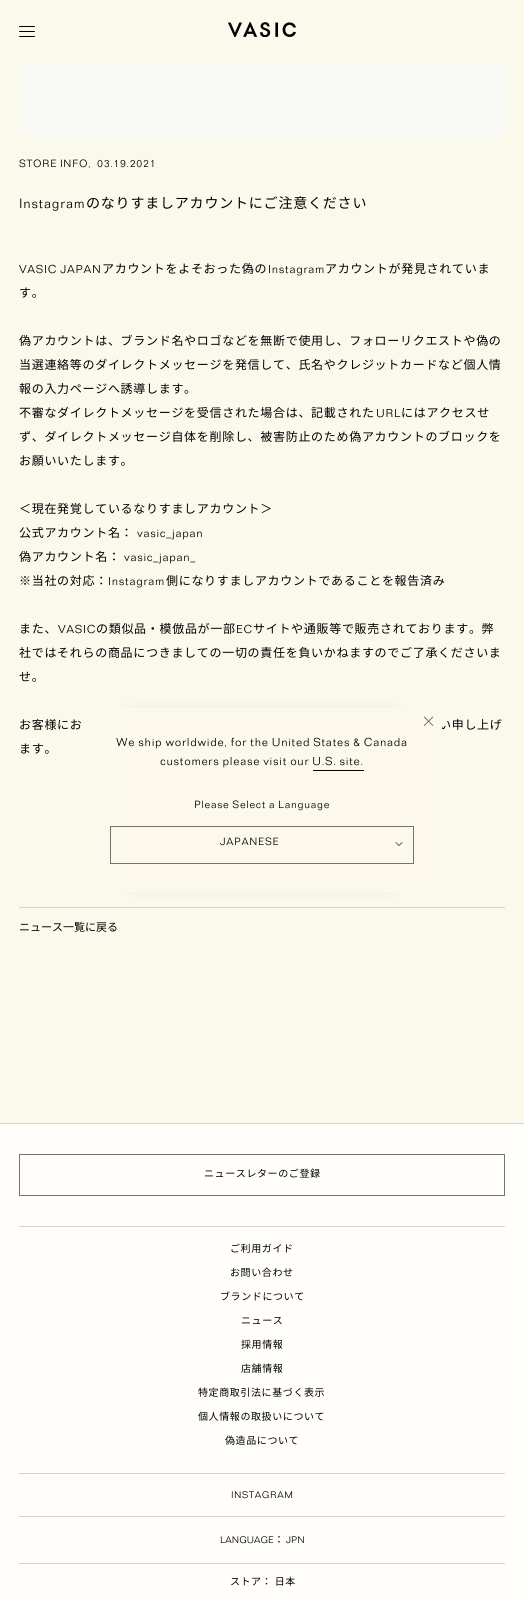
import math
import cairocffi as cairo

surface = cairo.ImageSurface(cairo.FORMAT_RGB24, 524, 1599)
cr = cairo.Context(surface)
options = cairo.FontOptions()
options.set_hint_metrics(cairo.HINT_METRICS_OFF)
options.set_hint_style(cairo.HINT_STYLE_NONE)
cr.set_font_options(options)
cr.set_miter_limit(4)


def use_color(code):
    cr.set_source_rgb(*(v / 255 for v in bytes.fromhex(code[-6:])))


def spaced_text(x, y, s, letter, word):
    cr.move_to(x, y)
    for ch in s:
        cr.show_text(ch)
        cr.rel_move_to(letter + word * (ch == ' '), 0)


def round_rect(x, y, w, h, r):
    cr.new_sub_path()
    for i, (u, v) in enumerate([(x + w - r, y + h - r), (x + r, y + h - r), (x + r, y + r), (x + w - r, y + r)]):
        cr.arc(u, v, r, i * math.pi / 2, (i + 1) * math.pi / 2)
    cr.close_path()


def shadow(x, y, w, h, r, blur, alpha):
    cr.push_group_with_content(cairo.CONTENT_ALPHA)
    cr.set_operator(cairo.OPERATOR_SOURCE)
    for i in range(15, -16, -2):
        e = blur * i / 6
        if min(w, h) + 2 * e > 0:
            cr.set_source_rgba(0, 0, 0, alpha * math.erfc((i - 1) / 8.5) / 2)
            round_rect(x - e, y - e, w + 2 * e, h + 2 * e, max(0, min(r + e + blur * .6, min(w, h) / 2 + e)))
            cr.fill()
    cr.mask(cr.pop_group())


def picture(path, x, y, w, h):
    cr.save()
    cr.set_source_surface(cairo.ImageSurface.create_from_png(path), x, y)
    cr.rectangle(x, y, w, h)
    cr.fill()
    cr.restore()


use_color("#fbf8ec")
cr.paint()
use_color("#000000")
round_rect(19, 31, 16, 1, 0.5)
cr.fill()
round_rect(19, 26, 16, 1, 0.5)
cr.fill()
round_rect(19, 36, 16, 1, 0.5)
cr.fill()
picture("img1.png", 228, 22, 68, 15)
use_color("#f9faf5")
cr.rectangle(19, 63, 486, 74)
cr.fill()
cr.select_font_face("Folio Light")
cr.set_font_size(11)
use_color("#000000")
spaced_text(19, 167, "STORE INFO,", 0.7, 0)
spaced_text(97, 167, "03.19.2021", 0.7, 0)
cr.set_font_size(14)
spaced_text(19, 208, "Instagram", 0.8, 0)
cr.select_font_face("Noto Sans JP")
spaced_text(86, 208, "のなりすましアカウントにご注意ください", 0.8, 0)
cr.select_font_face("Folio Light")
cr.set_font_size(12)
spaced_text(19, 273, "VASIC JAPAN", 0.7, 0)
cr.select_font_face("Noto Sans JP")
spaced_text(102, 273, "アカウントをよそおった偽の", 0.7, 0)
cr.select_font_face("Folio Light")
spaced_text(268, 273, "Instagram", 0.7, 0)
cr.select_font_face("Noto Sans JP")
spaced_text(325, 273, "アカウントが発見されていま", 0.7, 0)
spaced_text(19, 297, "す。", 0.7, 0)
spaced_text(19, 345, "偽アカウントは、ブランド名やロゴなどを無断で使用し、フォローリクエストや偽の", 0.7, 0)
spaced_text(19, 369, "当選連絡等のダイレクトメッセージを発信して、氏名やクレジットカードなど個人情", 0.7, 0)
spaced_text(19, 393, "報の入力ページへ誘導します。", 0.7, 0)
spaced_text(19, 417, "不審なダイレクトメッセージを受信された場合は、記載された", 0.7, 0)
cr.select_font_face("Folio Light")
spaced_text(376, 417, "URL", 0.7, 0)
cr.select_font_face("Noto Sans JP")
spaced_text(401, 417, "にはアクセスせ", 0.7, 0)
spaced_text(19, 441, "ず、ダイレクトメッセージ自体を削除し、被害防止のため偽アカウントのブロックを", 0.7, 0)
spaced_text(19, 465, "お願いいたします。", 0.7, 0)
spaced_text(19, 513, "＜現在発覚しているなりすましアカウント＞", 0.7, 0)
spaced_text(19, 537, "公式アカウント名：", 0.7, 0)
cr.select_font_face("Folio Light")
spaced_text(137, 537, "vasic_japan", 0.7, 0)
cr.select_font_face("Noto Sans JP")
spaced_text(19, 561, "偽アカウント名：", 0.7, 0)
cr.select_font_face("Folio Light")
spaced_text(124, 561, "vasic_japan_", 0.7, 0)
cr.select_font_face("Noto Sans JP")
spaced_text(19, 585, "※当社の対応：", 0.7, 0)
cr.select_font_face("Folio Light")
spaced_text(108, 585, "Instagram", 0.7, 0)
cr.select_font_face("Noto Sans JP")
spaced_text(166, 585, "側になりすましアカウントであることを報告済み", 0.7, 0)
spaced_text(19, 633, "また、", 0.7, 0)
cr.select_font_face("Folio Light")
spaced_text(58, 633, "VASIC", 0.7, 0)
cr.select_font_face("Noto Sans JP")
spaced_text(96, 633, "の類似品・模倣品が一部", 0.7, 0)
cr.select_font_face("Folio Light")
spaced_text(236, 633, "EC", 0.7, 0)
cr.select_font_face("Noto Sans JP")
spaced_text(253, 633, "サイトや通販等で販売されております。弊", 0.7, 0)
spaced_text(19, 657, "社ではそれらの商品につきましての一切の責任を負いかねますのでご了承くださいま", 0.7, 0)
spaced_text(19, 681, "せ。", 0.7, 0)
spaced_text(19, 729, "お客様にお", 0.7, 0)
spaced_text(439, 729, "い申し上げ", 0.7, 0)
spaced_text(19, 753, "ます。", 0.7, 0)
use_color("#d4d4d4")
cr.rectangle(19, 907, 486, 1)
cr.fill()
cr.set_font_size(11)
use_color("#000000")
cr.move_to(19, 931)
cr.show_text("ニュース一覧に戻る")
use_color("#000000")
shadow(132, 715, 260, 169, 0, 10, 0.11)
use_color("#fcf9ec")
cr.rectangle(116, 708, 326, 184)
cr.fill()
cr.select_font_face("Folio Light")
cr.set_font_size(12)
use_color("#000000")
spaced_text(116, 746, "We ship worldwide, for the United States & Canada", 0.7, 0)
spaced_text(160, 765, "customers please visit our U.S. site.", 0.7, 0)
cr.rectangle(313, 770, 51, 1)
cr.fill()
cr.set_font_size(11)
spaced_text(194, 808, "Please Select a Language", 0.7, 0)
picture("img2.png", 423, 716, 11, 10)
picture("img3.png", 395, 842, 8, 4)
cr.rectangle(110.5, 826.5, 303, 37)
use_color("#737373")
cr.set_line_width(1)
cr.stroke()
use_color("#000000")
spaced_text(220, 845, "JAPANESE", 0.7, 0)
use_color("#fffefa")
cr.rectangle(0, 1124, 524, 475)
cr.fill()
use_color("#d4d4d4")
cr.rectangle(0, 1123, 524, 1)
cr.fill()
cr.rectangle(19, 1226, 486, 1)
cr.fill()
cr.rectangle(19.5, 1154.5, 485, 41)
use_color("#737373")
cr.stroke()
cr.select_font_face("Noto Sans JP")
cr.set_font_size(10)
use_color("#000000")
spaced_text(204, 1177, "ニュースレターのご登録", 0.6, 0)
spaced_text(230, 1252, "ご利用ガイド", 0.6, 0)
spaced_text(230, 1276, "お問い合わせ", 0.6, 0)
spaced_text(220, 1300, "ブランドについて", 0.6, 0)
spaced_text(241, 1324, "ニュース", 0.6, 0)
spaced_text(241, 1348, "採用情報", 0.6, 0)
spaced_text(241, 1372, "店舗情報", 0.6, 0)
spaced_text(198, 1396, "特定商取引法に基づく表示", 0.6, 0)
spaced_text(198, 1420, "個人情報の取扱いについて", 0.6, 0)
spaced_text(225, 1444, "偽造品について", 0.6, 0)
use_color("#d4d4d4")
cr.rectangle(19, 1473, 486, 1)
cr.fill()
cr.select_font_face("Folio Light")
use_color("#000000")
spaced_text(231, 1498, "INSTAGRAM", 0.6, 0)
use_color("#d4d4d4")
cr.rectangle(19, 1516, 486, 1)
cr.fill()
use_color("#000000")
cr.move_to(220, 1543)
cr.show_text("LANGUAGE")
cr.select_font_face("Noto Sans JP")
cr.move_to(274, 1543)
cr.show_text("：")
cr.select_font_face("Folio Light")
cr.move_to(286, 1543)
cr.show_text("JPN")
use_color("#d4d4d4")
cr.rectangle(19, 1563, 486, 1)
cr.fill()
cr.select_font_face("Noto Sans JP")
use_color("#000000")
spaced_text(230, 1585, "ストア： 日本", 0.5, 0)
surface.write_to_png("result.png")
